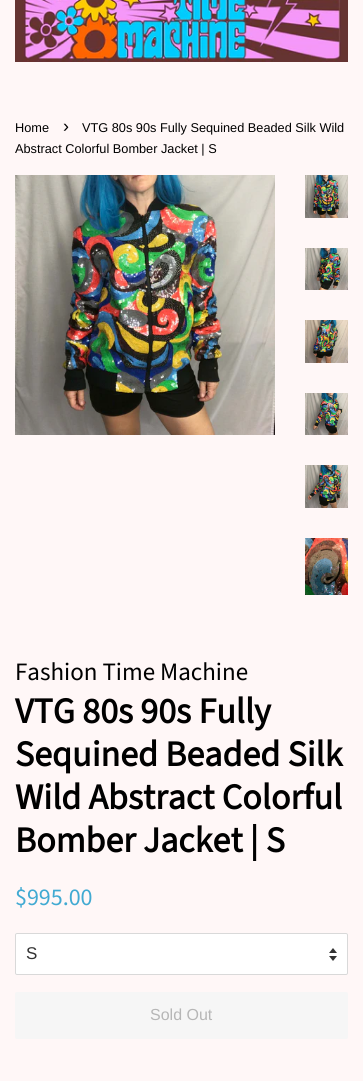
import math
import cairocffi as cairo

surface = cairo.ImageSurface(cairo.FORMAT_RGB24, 363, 1081)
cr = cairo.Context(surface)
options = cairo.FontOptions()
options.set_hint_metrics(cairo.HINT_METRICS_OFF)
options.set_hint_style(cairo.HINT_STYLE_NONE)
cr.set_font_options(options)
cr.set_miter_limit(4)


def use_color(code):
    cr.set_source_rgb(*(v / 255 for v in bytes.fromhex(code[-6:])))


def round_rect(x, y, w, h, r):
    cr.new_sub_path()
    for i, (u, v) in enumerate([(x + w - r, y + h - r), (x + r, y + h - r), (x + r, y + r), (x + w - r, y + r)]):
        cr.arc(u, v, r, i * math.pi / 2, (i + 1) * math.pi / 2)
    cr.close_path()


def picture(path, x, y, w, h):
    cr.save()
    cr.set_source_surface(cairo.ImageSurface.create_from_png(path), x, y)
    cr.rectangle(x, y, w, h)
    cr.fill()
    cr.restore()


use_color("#fff7f7")
cr.paint()
picture("img1.png", 15, 0, 333, 62)
cr.select_font_face("Liberation Sans")
cr.set_font_size(12.75)
use_color("#000000")
cr.move_to(15, 132)
cr.show_text("Home")
cr.set_font_size(18)
cr.move_to(63, 132)
cr.show_text("›")
cr.set_font_size(12.75)
cr.move_to(82, 132)
cr.show_text("VTG 80s 90s Fully Sequined Beaded Silk Wild")
cr.move_to(15, 153)
cr.show_text("Abstract Colorful Bomber Jacket | S")
picture("img2.png", 15, 175, 260, 260)
picture("img3.png", 305, 175, 43, 43)
picture("img4.png", 305, 248, 43, 42)
picture("img5.png", 305, 320, 43, 43)
picture("img6.png", 305, 393, 43, 42)
picture("img7.png", 305, 465, 43, 43)
picture("img8.png", 305, 538, 43, 57)
cr.select_font_face("Source Sans Pro")
cr.set_font_size(25)
cr.move_to(15, 680)
cr.show_text("Fashion Time Machine")
cr.select_font_face("Source Sans Pro", cairo.FONT_SLANT_NORMAL, cairo.FONT_WEIGHT_BOLD)
cr.set_font_size(36)
cr.move_to(15, 723)
cr.show_text("VTG 80s 90s Fully")
cr.move_to(15, 766)
cr.show_text("Sequined Beaded Silk")
cr.move_to(15, 809)
cr.show_text("Wild Abstract Colorful")
cr.move_to(15, 852)
cr.show_text("Bomber Jacket | S")
cr.select_font_face("Source Sans Pro")
cr.set_font_size(24)
use_color("#41aad2")
cr.move_to(15, 905)
cr.show_text("$995.00")
use_color("#ffffff")
round_rect(15, 933, 333, 42, 2)
cr.fill()
picture("img9.png", 329, 948, 8, 13)
round_rect(15.5, 933.5, 332, 41, 1.5)
use_color("#d9d9d9")
cr.set_line_width(1)
cr.stroke()
cr.select_font_face("Liberation Sans")
cr.set_font_size(17)
use_color("#333333")
cr.move_to(26, 959)
cr.show_text("S")
use_color("#f6f6f6")
round_rect(15, 992, 333, 47, 2)
cr.fill()
cr.set_font_size(16)
use_color("#b6b6b6")
cr.move_to(150, 1020)
cr.show_text("Sold Out")
surface.write_to_png("result.png")
